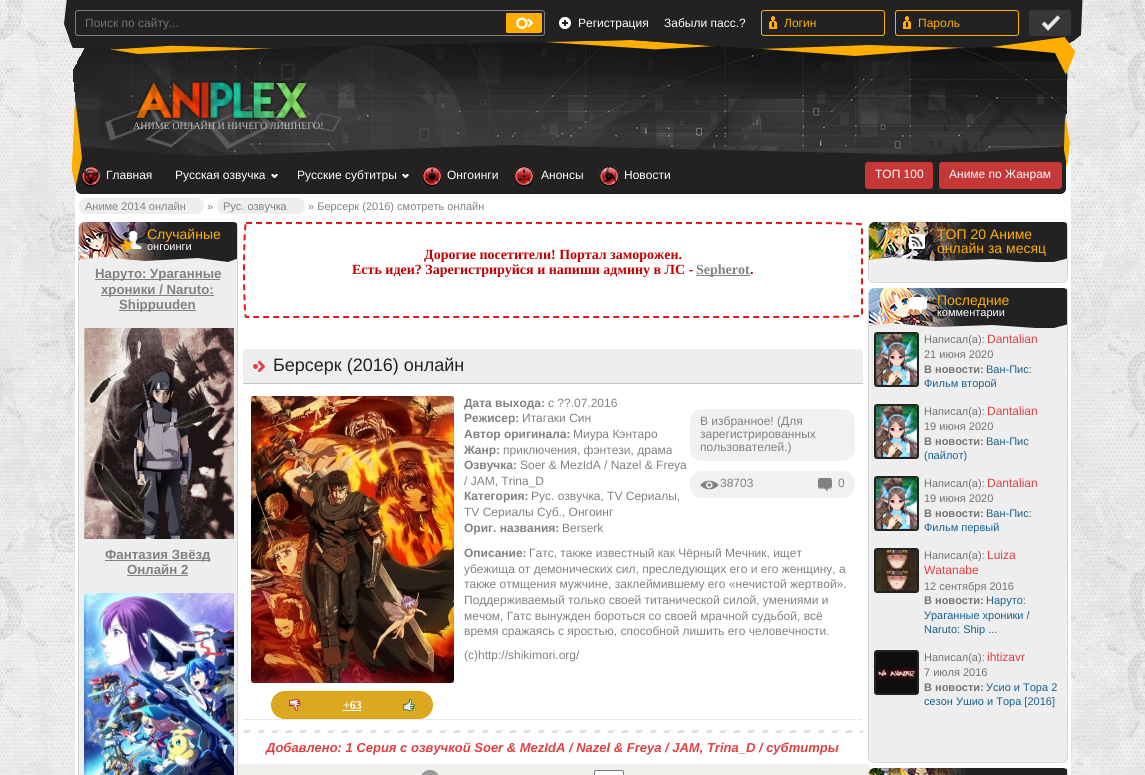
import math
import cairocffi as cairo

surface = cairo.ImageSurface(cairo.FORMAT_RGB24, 1145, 775)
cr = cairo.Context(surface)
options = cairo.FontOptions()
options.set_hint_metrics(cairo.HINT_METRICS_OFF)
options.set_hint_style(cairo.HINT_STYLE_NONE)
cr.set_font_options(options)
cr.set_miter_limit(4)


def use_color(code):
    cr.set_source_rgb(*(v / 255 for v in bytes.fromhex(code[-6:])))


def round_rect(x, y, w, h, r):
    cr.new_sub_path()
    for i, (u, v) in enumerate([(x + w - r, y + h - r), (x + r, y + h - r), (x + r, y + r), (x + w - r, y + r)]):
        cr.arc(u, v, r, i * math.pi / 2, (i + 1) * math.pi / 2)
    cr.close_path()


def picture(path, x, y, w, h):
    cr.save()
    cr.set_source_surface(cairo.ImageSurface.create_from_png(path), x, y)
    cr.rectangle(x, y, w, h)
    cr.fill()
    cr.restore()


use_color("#ffffff")
cr.paint()
picture("img1.png", 0, 0, 1145, 775)
use_color("#ffffff")
cr.rectangle(75, 145, 996, 630)
cr.fill()
picture("img2.png", 64, 0, 1019, 194)
round_rect(75.5, 10.5, 469, 25, 2.5)
use_color("#828282")
cr.set_line_width(1)
cr.stroke()
cr.select_font_face("Liberation Sans")
cr.set_font_size(12)
use_color("#737373")
cr.move_to(85, 27)
cr.show_text("Поиск по сайту...")
picture("img3.png", 506, 13, 36, 20)
picture("img4.png", 558, 17, 14, 13)
use_color("#ffffff")
cr.move_to(578, 27)
cr.show_text("Регистрация")
cr.move_to(664, 27)
cr.show_text("Забыли пасс.?")
picture("img5.png", 769, 16, 8, 13)
round_rect(761.5, 10.5, 123, 25, 2.5)
use_color("#ffae01")
cr.stroke()
cr.move_to(784, 27)
cr.show_text("Логин")
picture("img5.png", 903, 16, 8, 13)
round_rect(895.5, 10.5, 123, 25, 2.5)
cr.stroke()
cr.move_to(918, 27)
cr.show_text("Пароль")
picture("img6.png", 1029, 10, 42, 26)
picture("img7.png", 135, 80, 173, 41)
cr.select_font_face("Liberation Serif")
cr.set_font_size(10)
use_color("#c0c0c0")
cr.move_to(133, 129)
cr.show_text("АНИМЕ ОНЛАЙН И НИЧЕГО ЛИШНЕГО!")
picture("img8.png", 81, 166, 20, 20)
cr.select_font_face("Liberation Sans")
cr.set_font_size(12)
use_color("#ffffff")
cr.move_to(106, 179)
cr.show_text("Главная")
picture("img9.png", 271, 173, 7, 6)
cr.move_to(175, 179)
cr.show_text("Русская озвучка")
picture("img9.png", 402, 173, 7, 6)
cr.move_to(297, 179)
cr.show_text("Русские субтитры")
picture("img10.png", 422, 166, 20, 20)
cr.move_to(447, 179)
cr.show_text("Онгоинги")
picture("img11.png", 514, 166, 20, 20)
cr.move_to(541, 179)
cr.show_text("Анонсы")
picture("img12.png", 599, 166, 20, 20)
cr.move_to(624, 179)
cr.show_text("Новости")
use_color("#c63737")
round_rect(865, 162, 68, 27, 3)
cr.fill()
use_color("#ffffff")
cr.move_to(875, 178)
cr.show_text("ТОП 100")
use_color("#c63737")
round_rect(939, 162, 123, 27, 3)
cr.fill()
use_color("#ffffff")
cr.move_to(949, 178)
cr.show_text("Аниме по Жанрам")
use_color("#eeeeee")
round_rect(79, 198, 125, 16, 7)
cr.fill()
cr.set_font_size(11)
use_color("#818181")
cr.move_to(85, 210)
cr.show_text("Аниме 2014 онлайн")
cr.move_to(207, 210)
cr.show_text("»")
use_color("#eeeeee")
round_rect(217, 198, 88, 16, 7)
cr.fill()
use_color("#818181")
cr.move_to(223, 210)
cr.show_text("Рус. озвучка")
cr.move_to(308, 210)
cr.show_text("» Берсерк (2016) смотреть онлайн")
use_color("#f1f0ed")
round_rect(235, 764, 636, 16, 5)
cr.fill()
use_color("#eeeeee")
round_rect(78.5, 222.5, 159, 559, 5.5)
cr.fill_preserve()
use_color("#d5d5d5")
cr.stroke()
picture("img13.png", 79, 222, 158, 40)
picture("img14.png", 119, 231, 23, 21)
cr.set_font_size(14)
use_color("#ffae01")
cr.move_to(147, 239)
cr.show_text("Случайные")
cr.set_font_size(11)
use_color("#ffffff")
cr.move_to(147, 250)
cr.show_text("онгоинги")
use_color("#818181")
cr.rectangle(95, 279, 125, 1)
cr.fill()
cr.select_font_face("Liberation Sans", cairo.FONT_SLANT_NORMAL, cairo.FONT_WEIGHT_BOLD)
cr.set_font_size(13.25)
cr.move_to(95, 278)
cr.show_text("Наруто: Ураганные")
cr.rectangle(101, 295, 113, 1)
cr.fill()
cr.move_to(101, 294)
cr.show_text("хроники / Naruto:")
cr.rectangle(119, 310, 77, 1)
cr.fill()
cr.move_to(119, 309)
cr.show_text("Shippuuden")
picture("img15.png", 84, 328, 150, 211)
cr.rectangle(105, 560, 105, 1)
cr.fill()
cr.move_to(105, 559)
cr.show_text("Фантазия Звёзд")
cr.move_to(127, 574)
cr.show_text("Онлайн 2")
cr.rectangle(127, 575, 61, 1)
cr.fill()
picture("img16.png", 84, 593, 150, 182)
cr.new_path()
cr.move_to(246, 223)
cr.line_to(801, 223)
cr.curve_to(834.5, 223, 862, 223.5, 862, 224.5)
cr.line_to(862, 315.5)
cr.curve_to(862, 316.5, 834.5, 317, 801, 317)
cr.line_to(246, 317)
cr.curve_to(245, 317, 244, 296, 244, 270)
cr.curve_to(244, 244, 245, 223, 246, 223)
cr.close_path()
use_color("#e21616")
cr.set_line_width(2)
cr.set_dash([6, 4])
cr.stroke()
cr.select_font_face("Liberation Serif", cairo.FONT_SLANT_NORMAL, cairo.FONT_WEIGHT_BOLD)
cr.set_font_size(14)
use_color("#c40000")
cr.move_to(424, 259)
cr.show_text("Дорогие посетители! Портал заморожен.")
cr.move_to(352, 274)
cr.show_text("Есть идеи? Зарегистрируйся и напиши админу в ЛС -")
use_color("#818181")
cr.rectangle(696, 275, 54, 1)
cr.fill()
cr.move_to(696, 274)
cr.show_text("Sepherot")
use_color("#c40000")
cr.move_to(750, 274)
cr.show_text(".")
cr.new_path()
cr.move_to(243, 719.5)
cr.line_to(863, 719.5)
use_color("#d5d5d5")
cr.set_line_width(1)
cr.set_dash([1, 1])
cr.stroke()
use_color("#eeeeee")
cr.new_path()
cr.move_to(248, 349)
cr.line_to(858, 349)
cr.curve_to(861, 349, 863, 351, 863, 354)
cr.line_to(863, 384)
cr.line_to(243, 384)
cr.line_to(243, 354)
cr.curve_to(243, 351, 245, 349, 248, 349)
cr.close_path()
cr.fill()
picture("img17.png", 253, 361, 12, 11)
use_color("#c5c5c5")
cr.rectangle(243, 383, 620, 1)
cr.fill()
cr.select_font_face("Liberation Sans")
cr.set_font_size(18)
use_color("#222222")
cr.move_to(273, 371)
cr.show_text("Берсерк (2016) онлайн")
cr.save()
cr.rectangle(464, 396, 391, 140)
cr.clip()
cr.select_font_face("Liberation Sans", cairo.FONT_SLANT_NORMAL, cairo.FONT_WEIGHT_BOLD)
cr.set_font_size(12)
use_color("#818181")
cr.move_to(464, 407)
cr.show_text("Дата выхода:")
cr.restore()
cr.set_font_size(12)
use_color("#818181")
cr.move_to(548, 407)
cr.show_text("c ??.07.2016")
cr.select_font_face("Liberation Sans", cairo.FONT_SLANT_NORMAL, cairo.FONT_WEIGHT_BOLD)
cr.move_to(464, 422)
cr.show_text("Режисер:")
cr.select_font_face("Liberation Sans")
cr.move_to(522, 422)
cr.show_text("Итагаки Син")
cr.select_font_face("Liberation Sans", cairo.FONT_SLANT_NORMAL, cairo.FONT_WEIGHT_BOLD)
cr.move_to(464, 438)
cr.show_text("Автор оригинала:")
cr.select_font_face("Liberation Sans")
cr.move_to(573, 438)
cr.show_text("Миура Кэнтаро")
cr.select_font_face("Liberation Sans", cairo.FONT_SLANT_NORMAL, cairo.FONT_WEIGHT_BOLD)
cr.move_to(464, 454)
cr.show_text("Жанр:")
cr.select_font_face("Liberation Sans")
cr.move_to(503, 454)
cr.show_text("приключения, фэнтези, драма")
cr.select_font_face("Liberation Sans", cairo.FONT_SLANT_NORMAL, cairo.FONT_WEIGHT_BOLD)
cr.move_to(464, 469)
cr.show_text("Озвучка:")
cr.select_font_face("Liberation Sans")
cr.move_to(520, 469)
cr.show_text("Soer & MezIdA / Nazel & Freya")
cr.save()
cr.rectangle(464, 396, 391, 140)
cr.clip()
cr.move_to(464, 485)
cr.show_text("/ JAM, Trina_D")
cr.restore()
cr.select_font_face("Liberation Sans", cairo.FONT_SLANT_NORMAL, cairo.FONT_WEIGHT_BOLD)
cr.move_to(464, 500)
cr.show_text("Категория:")
cr.select_font_face("Liberation Sans")
cr.move_to(531, 500)
cr.show_text("Рус. озвучка, TV Сериалы,")
cr.move_to(464, 516)
cr.show_text("TV Сериалы Суб., Онгоинг")
cr.select_font_face("Liberation Sans", cairo.FONT_SLANT_NORMAL, cairo.FONT_WEIGHT_BOLD)
cr.move_to(464, 532)
cr.show_text("Ориг. названия:")
cr.select_font_face("Liberation Sans")
cr.move_to(562, 532)
cr.show_text("Berserk")
use_color("#f1f1f1")
round_rect(690, 409, 165, 52, 12)
cr.fill()
use_color("#818181")
cr.move_to(700, 425)
cr.show_text("В избранное! (Для")
cr.move_to(700, 438)
cr.show_text("зарегистрированных")
cr.move_to(700, 451)
cr.show_text("пользователей.)")
use_color("#f1f1f1")
round_rect(690, 471, 165, 27, 12)
cr.fill()
picture("img18.png", 700, 480, 19, 10)
use_color("#818181")
cr.move_to(720, 487)
cr.show_text("38703")
picture("img19.png", 818, 478, 14, 13)
cr.move_to(838, 487)
cr.show_text("0")
cr.select_font_face("Liberation Sans", cairo.FONT_SLANT_NORMAL, cairo.FONT_WEIGHT_BOLD)
cr.move_to(464, 557)
cr.show_text("Описание:")
cr.select_font_face("Liberation Sans")
cr.move_to(529, 557)
cr.show_text("Гатс, также известный как Чёрный Мечник, ищет")
cr.move_to(464, 573)
cr.show_text("убежища от демонических сил, преследующих его и его женщину, а")
cr.move_to(464, 588)
cr.show_text("также отмщения мужчине, заклеймившему его «нечистой жертвой».")
cr.move_to(464, 604)
cr.show_text("Поддерживаемый только своей титанической силой, умениями и")
cr.move_to(464, 620)
cr.show_text("мечом, Гатс вынужден бороться со своей мрачной судьбой, всё")
cr.move_to(464, 635)
cr.show_text("время сражаясь с яростью, способной лишить его человечности.")
cr.move_to(464, 659)
cr.show_text("(c)http://shikimori.org/")
picture("img20.png", 251, 396, 203, 287)
use_color("#dca822")
round_rect(271.5, 691.5, 161, 27, 13.5)
cr.fill_preserve()
use_color("#d1a50a")
cr.set_dash([])
cr.stroke()
picture("img21.png", 289, 699, 12, 12)
cr.select_font_face("Liberation Serif", cairo.FONT_SLANT_NORMAL, cairo.FONT_WEIGHT_BOLD)
use_color("#ffffff")
cr.move_to(343, 709)
cr.show_text("+63")
cr.rectangle(343, 710, 18, 1)
cr.fill()
picture("img22.png", 403, 699, 12, 12)
picture("img23.png", 243, 730, 620, 3)
cr.select_font_face("Liberation Sans", cairo.FONT_SLANT_ITALIC, cairo.FONT_WEIGHT_BOLD)
cr.set_font_size(13)
use_color("#e33f3f")
cr.move_to(266, 752)
cr.show_text("Добавлено: 1 Серия с озвучкой Soer & MezIdA / Nazel & Freya / JAM, Trina_D / субтитры")
picture("img24.png", 421, 770, 18, 5)
use_color("#ffffff")
round_rect(594.5, 770.5, 29, 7, 1.5)
cr.fill_preserve()
use_color("#767676")
cr.stroke()
use_color("#eeeeee")
round_rect(868.5, 222.5, 199, 60, 5.5)
cr.fill_preserve()
use_color("#d5d5d5")
cr.stroke()
picture("img25.png", 869, 222, 198, 40)
picture("img26.png", 909, 234, 16, 15)
cr.select_font_face("Liberation Sans")
cr.set_font_size(14)
use_color("#ffae01")
cr.move_to(937, 239)
cr.show_text("ТОП 20 Аниме")
cr.move_to(937, 253)
cr.show_text("онлайн за месяц")
use_color("#eeeeee")
round_rect(868.5, 288.5, 199, 474, 5.5)
cr.fill_preserve()
use_color("#d5d5d5")
cr.stroke()
picture("img27.png", 869, 288, 198, 40)
picture("img28.png", 909, 297, 18, 16)
use_color("#ffae01")
cr.move_to(937, 305)
cr.show_text("Последние")
cr.set_font_size(11)
use_color("#ffffff")
cr.move_to(937, 316)
cr.show_text("комментарии")
round_rect(875, 333, 43, 53, 2)
use_color("#222222")
cr.set_line_width(2)
cr.stroke()
picture("img29.png", 876, 334, 41, 51)
use_color("#737373")
cr.move_to(924, 343)
cr.show_text("Написал(а):")
cr.set_font_size(12)
use_color("#e33f3f")
cr.move_to(987, 343)
cr.show_text("Dantalian")
cr.set_font_size(11)
use_color("#737373")
cr.move_to(924, 358)
cr.show_text("21 июня 2020")
cr.select_font_face("Liberation Sans", cairo.FONT_SLANT_NORMAL, cairo.FONT_WEIGHT_BOLD)
cr.move_to(924, 373)
cr.show_text("В новости:")
cr.select_font_face("Liberation Sans")
use_color("#176093")
cr.move_to(986, 373)
cr.show_text("Ван-Пис:")
cr.move_to(924, 387)
cr.show_text("Фильм второй")
round_rect(875, 405, 43, 53, 2)
use_color("#222222")
cr.stroke()
picture("img29.png", 876, 406, 41, 51)
use_color("#737373")
cr.move_to(924, 415)
cr.show_text("Написал(а):")
cr.set_font_size(12)
use_color("#e33f3f")
cr.move_to(987, 415)
cr.show_text("Dantalian")
cr.set_font_size(11)
use_color("#737373")
cr.move_to(924, 430)
cr.show_text("19 июня 2020")
cr.select_font_face("Liberation Sans", cairo.FONT_SLANT_NORMAL, cairo.FONT_WEIGHT_BOLD)
cr.move_to(924, 445)
cr.show_text("В новости:")
cr.select_font_face("Liberation Sans")
use_color("#176093")
cr.move_to(986, 445)
cr.show_text("Ван-Пис")
cr.move_to(924, 459)
cr.show_text("(пайлот)")
round_rect(875, 477, 43, 53, 2)
use_color("#222222")
cr.stroke()
picture("img29.png", 876, 478, 41, 51)
use_color("#737373")
cr.move_to(924, 487)
cr.show_text("Написал(а):")
cr.set_font_size(12)
use_color("#e33f3f")
cr.move_to(987, 487)
cr.show_text("Dantalian")
cr.set_font_size(11)
use_color("#737373")
cr.move_to(924, 502)
cr.show_text("19 июня 2020")
cr.select_font_face("Liberation Sans", cairo.FONT_SLANT_NORMAL, cairo.FONT_WEIGHT_BOLD)
cr.move_to(924, 517)
cr.show_text("В новости:")
cr.select_font_face("Liberation Sans")
use_color("#176093")
cr.move_to(986, 517)
cr.show_text("Ван-Пис:")
cr.move_to(924, 531)
cr.show_text("Фильм первый")
round_rect(875, 549, 43, 43, 2)
use_color("#222222")
cr.stroke()
picture("img30.png", 876, 550, 41, 41)
use_color("#737373")
cr.move_to(924, 559)
cr.show_text("Написал(а):")
cr.set_font_size(12)
use_color("#e33f3f")
cr.move_to(987, 559)
cr.show_text("Luiza")
cr.move_to(924, 574)
cr.show_text("Watanabe")
cr.set_font_size(11)
use_color("#737373")
cr.move_to(924, 590)
cr.show_text("12 сентября 2016")
cr.select_font_face("Liberation Sans", cairo.FONT_SLANT_NORMAL, cairo.FONT_WEIGHT_BOLD)
cr.move_to(924, 604)
cr.show_text("В новости:")
cr.select_font_face("Liberation Sans")
use_color("#176093")
cr.move_to(986, 604)
cr.show_text("Наруто:")
cr.move_to(924, 619)
cr.show_text("Ураганные хроники /")
cr.move_to(924, 633)
cr.show_text("Naruto: Ship ...")
round_rect(875, 651, 43, 43, 2)
use_color("#222222")
cr.stroke()
picture("img31.png", 876, 652, 41, 41)
use_color("#737373")
cr.move_to(924, 661)
cr.show_text("Написал(а):")
cr.set_font_size(12)
use_color("#e33f3f")
cr.move_to(987, 661)
cr.show_text("ihtizavr")
cr.set_font_size(11)
use_color("#737373")
cr.move_to(924, 676)
cr.show_text("7 июля 2016")
cr.select_font_face("Liberation Sans", cairo.FONT_SLANT_NORMAL, cairo.FONT_WEIGHT_BOLD)
cr.move_to(924, 691)
cr.show_text("В новости:")
cr.select_font_face("Liberation Sans")
use_color("#176093")
cr.move_to(986, 691)
cr.show_text("Усио и Тора 2")
cr.move_to(924, 705)
cr.show_text("сезон Ушио и Тора [2016]")
round_rect(868.5, 768.5, 199, 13, 5.5)
use_color("#d5d5d5")
cr.set_line_width(1)
cr.stroke()
picture("img32.png", 869, 768, 198, 7)
surface.write_to_png("result.png")
